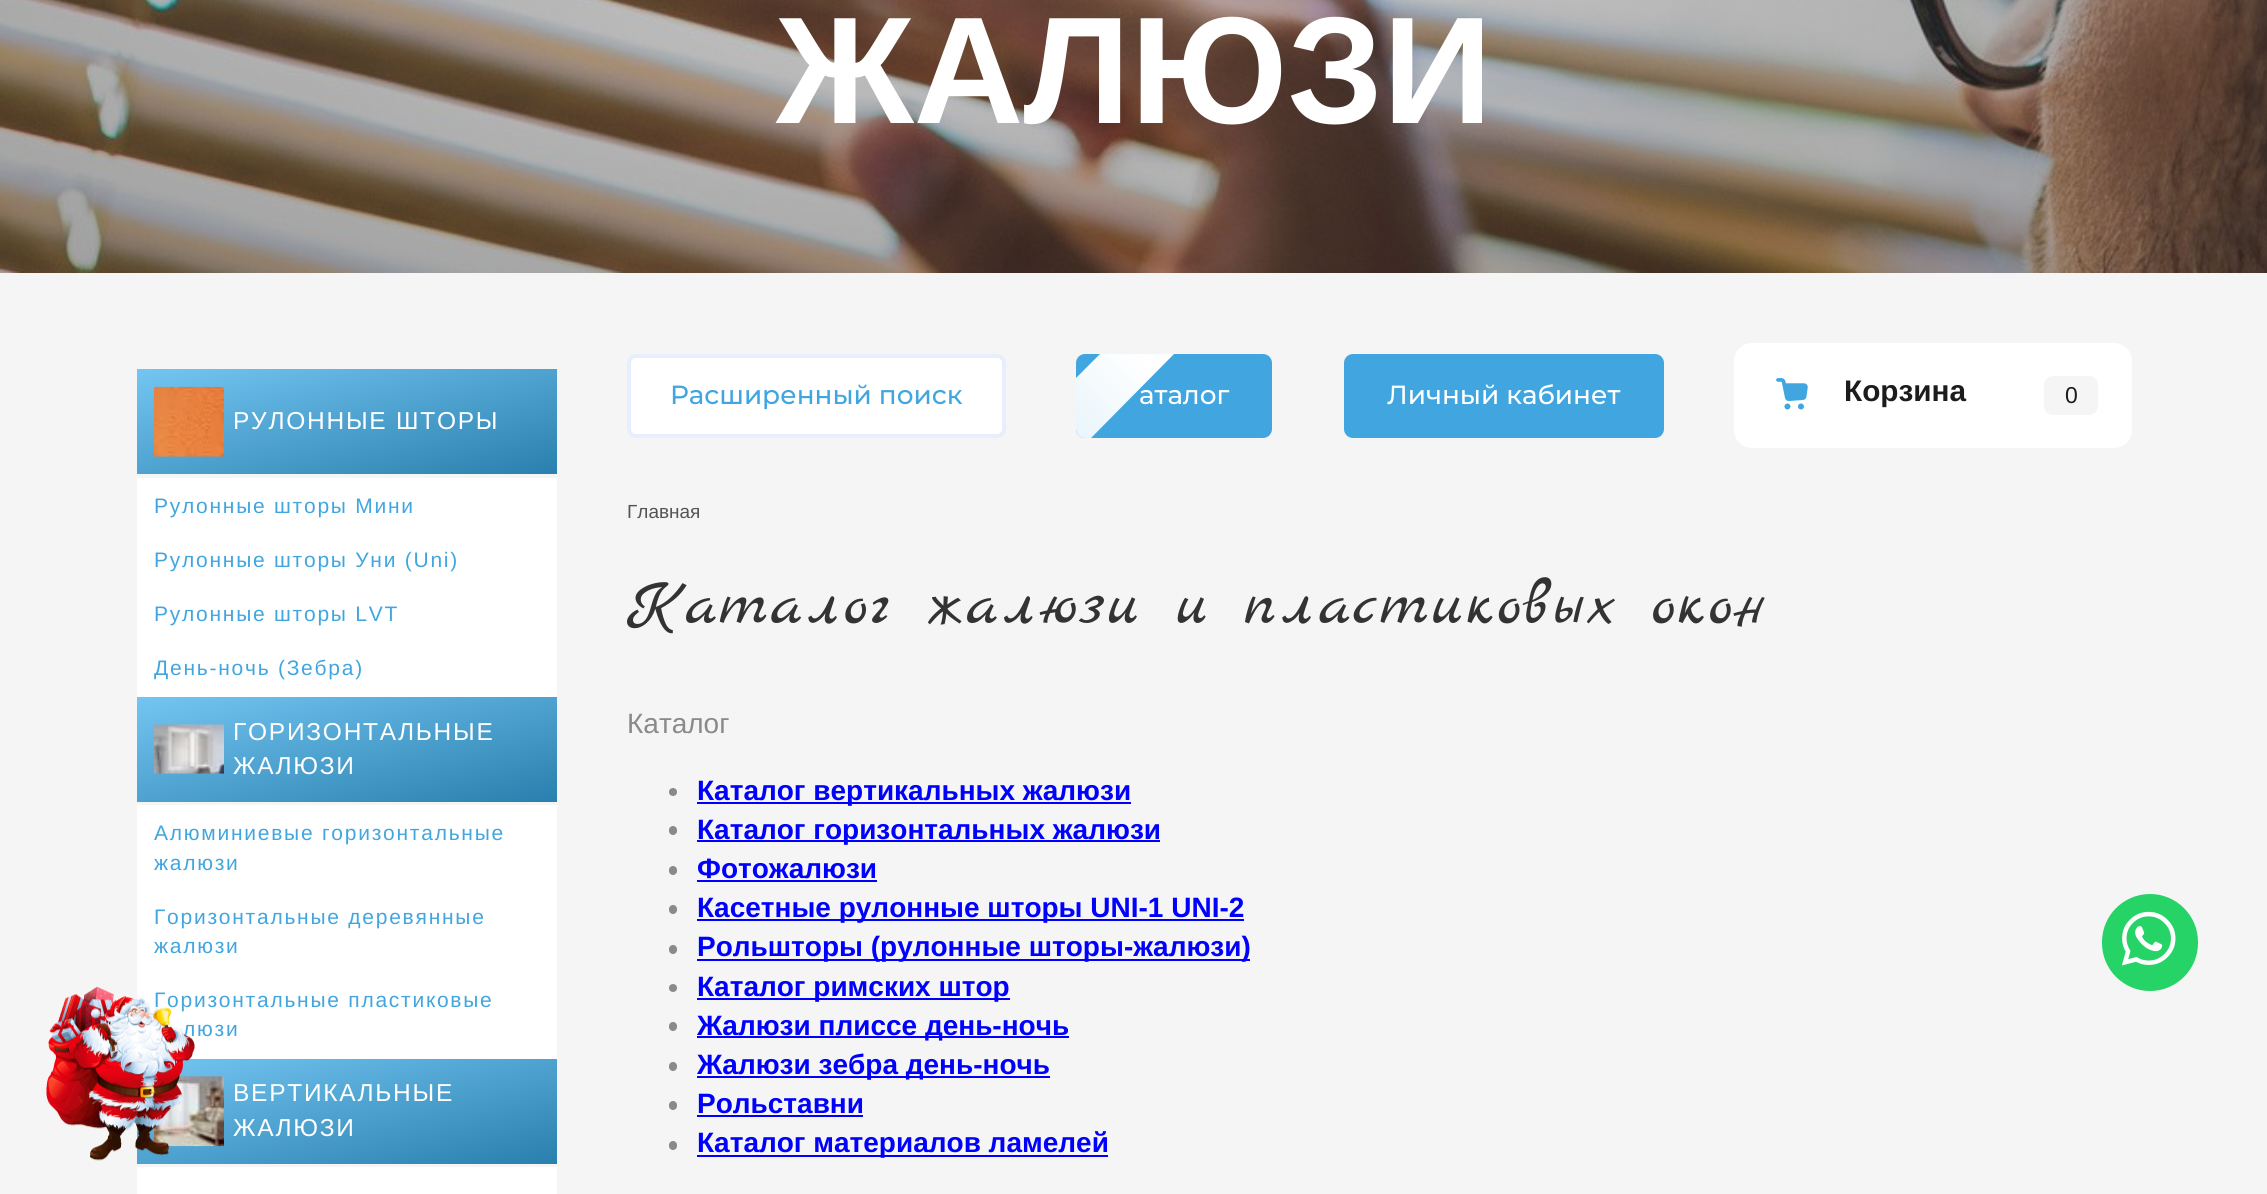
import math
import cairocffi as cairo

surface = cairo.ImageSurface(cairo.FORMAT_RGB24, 2267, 1194)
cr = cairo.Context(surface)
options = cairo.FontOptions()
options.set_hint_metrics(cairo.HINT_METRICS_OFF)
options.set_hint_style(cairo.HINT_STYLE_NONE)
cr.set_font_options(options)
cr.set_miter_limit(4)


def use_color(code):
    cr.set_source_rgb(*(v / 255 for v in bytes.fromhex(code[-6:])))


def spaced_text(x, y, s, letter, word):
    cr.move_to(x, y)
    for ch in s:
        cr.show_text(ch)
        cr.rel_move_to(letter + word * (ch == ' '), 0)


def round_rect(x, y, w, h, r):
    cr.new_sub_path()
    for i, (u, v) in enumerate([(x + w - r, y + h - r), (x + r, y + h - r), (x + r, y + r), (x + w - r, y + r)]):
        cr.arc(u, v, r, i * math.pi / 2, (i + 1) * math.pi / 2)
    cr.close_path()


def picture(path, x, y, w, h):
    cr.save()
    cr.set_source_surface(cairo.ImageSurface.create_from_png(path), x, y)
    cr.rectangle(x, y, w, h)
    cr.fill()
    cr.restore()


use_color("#f5f5f5")
cr.paint()
picture("img1.png", 0, 0, 2267, 273)
cr.select_font_face("Liberation Sans", cairo.FONT_SLANT_NORMAL, cairo.FONT_WEIGHT_BOLD)
cr.set_font_size(152.25)
use_color("#ffffff")
cr.move_to(776, 123)
cr.show_text("ЖАЛЮЗИ")
gradient = cairo.LinearGradient(322, 323, 371, 521)
gradient.add_color_stop_rgba(0, 0.455, 0.776, 0.949, 1)
gradient.add_color_stop_rgba(1, 0.161, 0.498, 0.678, 1)
cr.set_source(gradient)
cr.rectangle(137, 369, 420, 105)
cr.fill()
picture("img2.png", 154, 386, 70, 71)
cr.select_font_face("Liberation Sans")
cr.set_font_size(24.5)
use_color("#ffffff")
spaced_text(233, 429, "РУЛОННЫЕ ШТОРЫ", 1.75, 0)
cr.rectangle(137, 478, 420, 219)
cr.fill()
cr.set_font_size(21)
use_color("#41a6e0")
spaced_text(154, 513, "Рулонные шторы Мини", 1.75, 0)
spaced_text(154, 567, "Рулонные шторы Уни (Uni)", 1.75, 0)
spaced_text(154, 621, "Рулонные шторы LVT", 1.75, 0)
spaced_text(154, 675, "День-ночь (Зебра)", 1.75, 0)
gradient = cairo.LinearGradient(322, 650, 371, 848)
gradient.add_color_stop_rgba(0, 0.455, 0.776, 0.949, 1)
gradient.add_color_stop_rgba(1, 0.161, 0.498, 0.678, 1)
cr.set_source(gradient)
cr.rectangle(137, 697, 420, 105)
cr.fill()
picture("img3.png", 154, 724, 70, 50)
cr.set_font_size(24.5)
use_color("#ffffff")
spaced_text(233, 740, "ГОРИЗОНТАЛЬНЫЕ", 1.75, 0)
spaced_text(233, 774, "ЖАЛЮЗИ", 1.75, 0)
cr.rectangle(137, 805, 420, 254)
cr.fill()
cr.set_font_size(21)
use_color("#41a6e0")
spaced_text(154, 840, "Алюминиевые горизонтальные", 1.75, 0)
spaced_text(154, 870, "жалюзи", 1.75, 0)
spaced_text(154, 924, "Горизонтальные деревянные", 1.75, 0)
spaced_text(154, 953, "жалюзи", 1.75, 0)
spaced_text(154, 1007, "Горизонтальные пластиковые", 1.75, 0)
spaced_text(183, 1036, "люзи", 1.75, 0)
gradient = cairo.LinearGradient(322, 1012, 371, 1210)
gradient.add_color_stop_rgba(0, 0.455, 0.776, 0.949, 1)
gradient.add_color_stop_rgba(1, 0.161, 0.498, 0.678, 1)
cr.set_source(gradient)
cr.rectangle(137, 1059, 420, 105)
cr.fill()
picture("img4.png", 154, 1076, 70, 71)
cr.set_font_size(24.5)
use_color("#ffffff")
spaced_text(233, 1101, "ВЕРТИКАЛЬНЫЕ", 1.75, 0)
spaced_text(233, 1136, "ЖАЛЮЗИ", 1.75, 0)
cr.rectangle(137, 1167, 420, 27)
cr.fill()
round_rect(627, 354, 379, 84, 9)
cr.fill()
round_rect(629, 356, 375, 80, 7)
cr.set_source_rgba(0.055, 0.373, 0.953, 0.1)
cr.set_line_width(4)
cr.stroke()
cr.select_font_face("Montserrat Medium")
cr.set_font_size(26.25)
use_color("#41a6e0")
cr.move_to(670, 404)
cr.show_text("Расширенный поиск")
round_rect(1076, 354, 196, 84, 9)
cr.fill()
use_color("#ffffff")
cr.move_to(1139, 404)
cr.show_text("аталог")
gradient = cairo.LinearGradient(1323, 168, 952, 539)
gradient.add_color_stop_rgba(0, 1, 1, 1, 0.7)
gradient.add_color_stop_rgba(0.5, 1, 1, 1, 1)
gradient.add_color_stop_rgba(1, 1, 1, 1, 0.7)
cr.set_source(gradient)
cr.new_path()
cr.move_to(1076, 378)
cr.line_to(1100, 354)
cr.line_to(1174, 354)
cr.line_to(1091, 438)
cr.line_to(1085, 438)
cr.curve_to(1080, 438, 1076, 434, 1076, 429)
cr.close_path()
cr.fill()
use_color("#41a6e0")
round_rect(1344, 354, 320, 84, 9)
cr.fill()
use_color("#ffffff")
cr.move_to(1387, 404)
cr.show_text("Личный кабинет")
round_rect(1734, 343, 398, 105, 18)
cr.fill()
picture("img5.png", 1776, 378, 32, 32)
cr.select_font_face("Liberation Sans", cairo.FONT_SLANT_NORMAL, cairo.FONT_WEIGHT_BOLD)
cr.set_font_size(29.75)
use_color("#1c1c1c")
cr.move_to(1844, 401)
cr.show_text("Корзина")
use_color("#f5f5f5")
round_rect(2044, 376, 54, 39, 9)
cr.fill()
cr.select_font_face("Liberation Sans")
cr.set_font_size(23)
use_color("#1c1c1c")
cr.move_to(2065, 403)
cr.show_text("0")
cr.set_font_size(19)
use_color("#545454")
cr.move_to(627, 518)
cr.show_text("Главная")
cr.select_font_face("Marck Script")
cr.set_font_size(66.5)
use_color("#333333")
spaced_text(627, 623, "Каталог жалюзи и пластиковых окон", 1.75, 0)
cr.select_font_face("Liberation Sans")
cr.set_font_size(28)
use_color("#8a8a8a")
cr.move_to(627, 733)
cr.show_text("Каталог")
cr.new_path()
cr.arc(673, 792, 4, 0, 2 * math.pi)
cr.fill()
use_color("#0000ff")
cr.rectangle(697, 802, 434, 2)
cr.fill()
cr.select_font_face("Liberation Sans", cairo.FONT_SLANT_NORMAL, cairo.FONT_WEIGHT_BOLD)
cr.move_to(697, 800)
cr.show_text("Каталог вертикальных жалюзи")
use_color("#8a8a8a")
round_rect(669, 826, 8, 9, 4)
cr.fill()
use_color("#0000ff")
cr.rectangle(697, 840, 463, 2)
cr.fill()
cr.move_to(697, 839)
cr.show_text("Каталог горизонтальных жалюзи")
use_color("#8a8a8a")
round_rect(669, 866, 8, 9, 4)
cr.fill()
use_color("#0000ff")
cr.move_to(697, 878)
cr.show_text("Фотожалюзи")
cr.rectangle(697, 880, 180, 2)
cr.fill()
use_color("#8a8a8a")
round_rect(669, 905, 8, 9, 4)
cr.fill()
use_color("#0000ff")
cr.rectangle(697, 919, 547, 2)
cr.fill()
cr.move_to(697, 917)
cr.show_text("Касетные рулонные шторы UNI-1 UNI-2")
use_color("#8a8a8a")
round_rect(669, 945, 8, 9, 4)
cr.fill()
use_color("#0000ff")
cr.rectangle(697, 959, 553, 2)
cr.fill()
cr.move_to(697, 956)
cr.show_text("Рольшторы (рулонные шторы-жалюзи)")
use_color("#8a8a8a")
cr.new_path()
cr.arc(673, 988, 4, 0, 2 * math.pi)
cr.fill()
use_color("#0000ff")
cr.rectangle(697, 998, 313, 2)
cr.fill()
cr.move_to(697, 996)
cr.show_text("Каталог римских штор")
use_color("#8a8a8a")
round_rect(669, 1022, 8, 9, 4)
cr.fill()
use_color("#0000ff")
cr.rectangle(697, 1036, 372, 2)
cr.fill()
cr.move_to(697, 1035)
cr.show_text("Жалюзи плиссе день-ночь")
use_color("#8a8a8a")
round_rect(669, 1062, 8, 9, 4)
cr.fill()
use_color("#0000ff")
cr.rectangle(697, 1076, 353, 2)
cr.fill()
cr.move_to(697, 1074)
cr.show_text("Жалюзи зебра день-ночь")
use_color("#8a8a8a")
round_rect(669, 1101, 8, 9, 4)
cr.fill()
use_color("#0000ff")
cr.move_to(697, 1113)
cr.show_text("Рольставни")
cr.rectangle(697, 1115, 166, 2)
cr.fill()
use_color("#8a8a8a")
round_rect(669, 1141, 8, 9, 4)
cr.fill()
use_color("#0000ff")
cr.rectangle(697, 1155, 411, 2)
cr.fill()
cr.move_to(697, 1152)
cr.show_text("Каталог материалов ламелей")
use_color("#25d366")
round_rect(2102, 894, 96, 97, 48)
cr.fill()
picture("img6.png", 2121, 911, 55, 55)
picture("img7.png", 46, 986, 149, 175)
surface.write_to_png("result.png")
